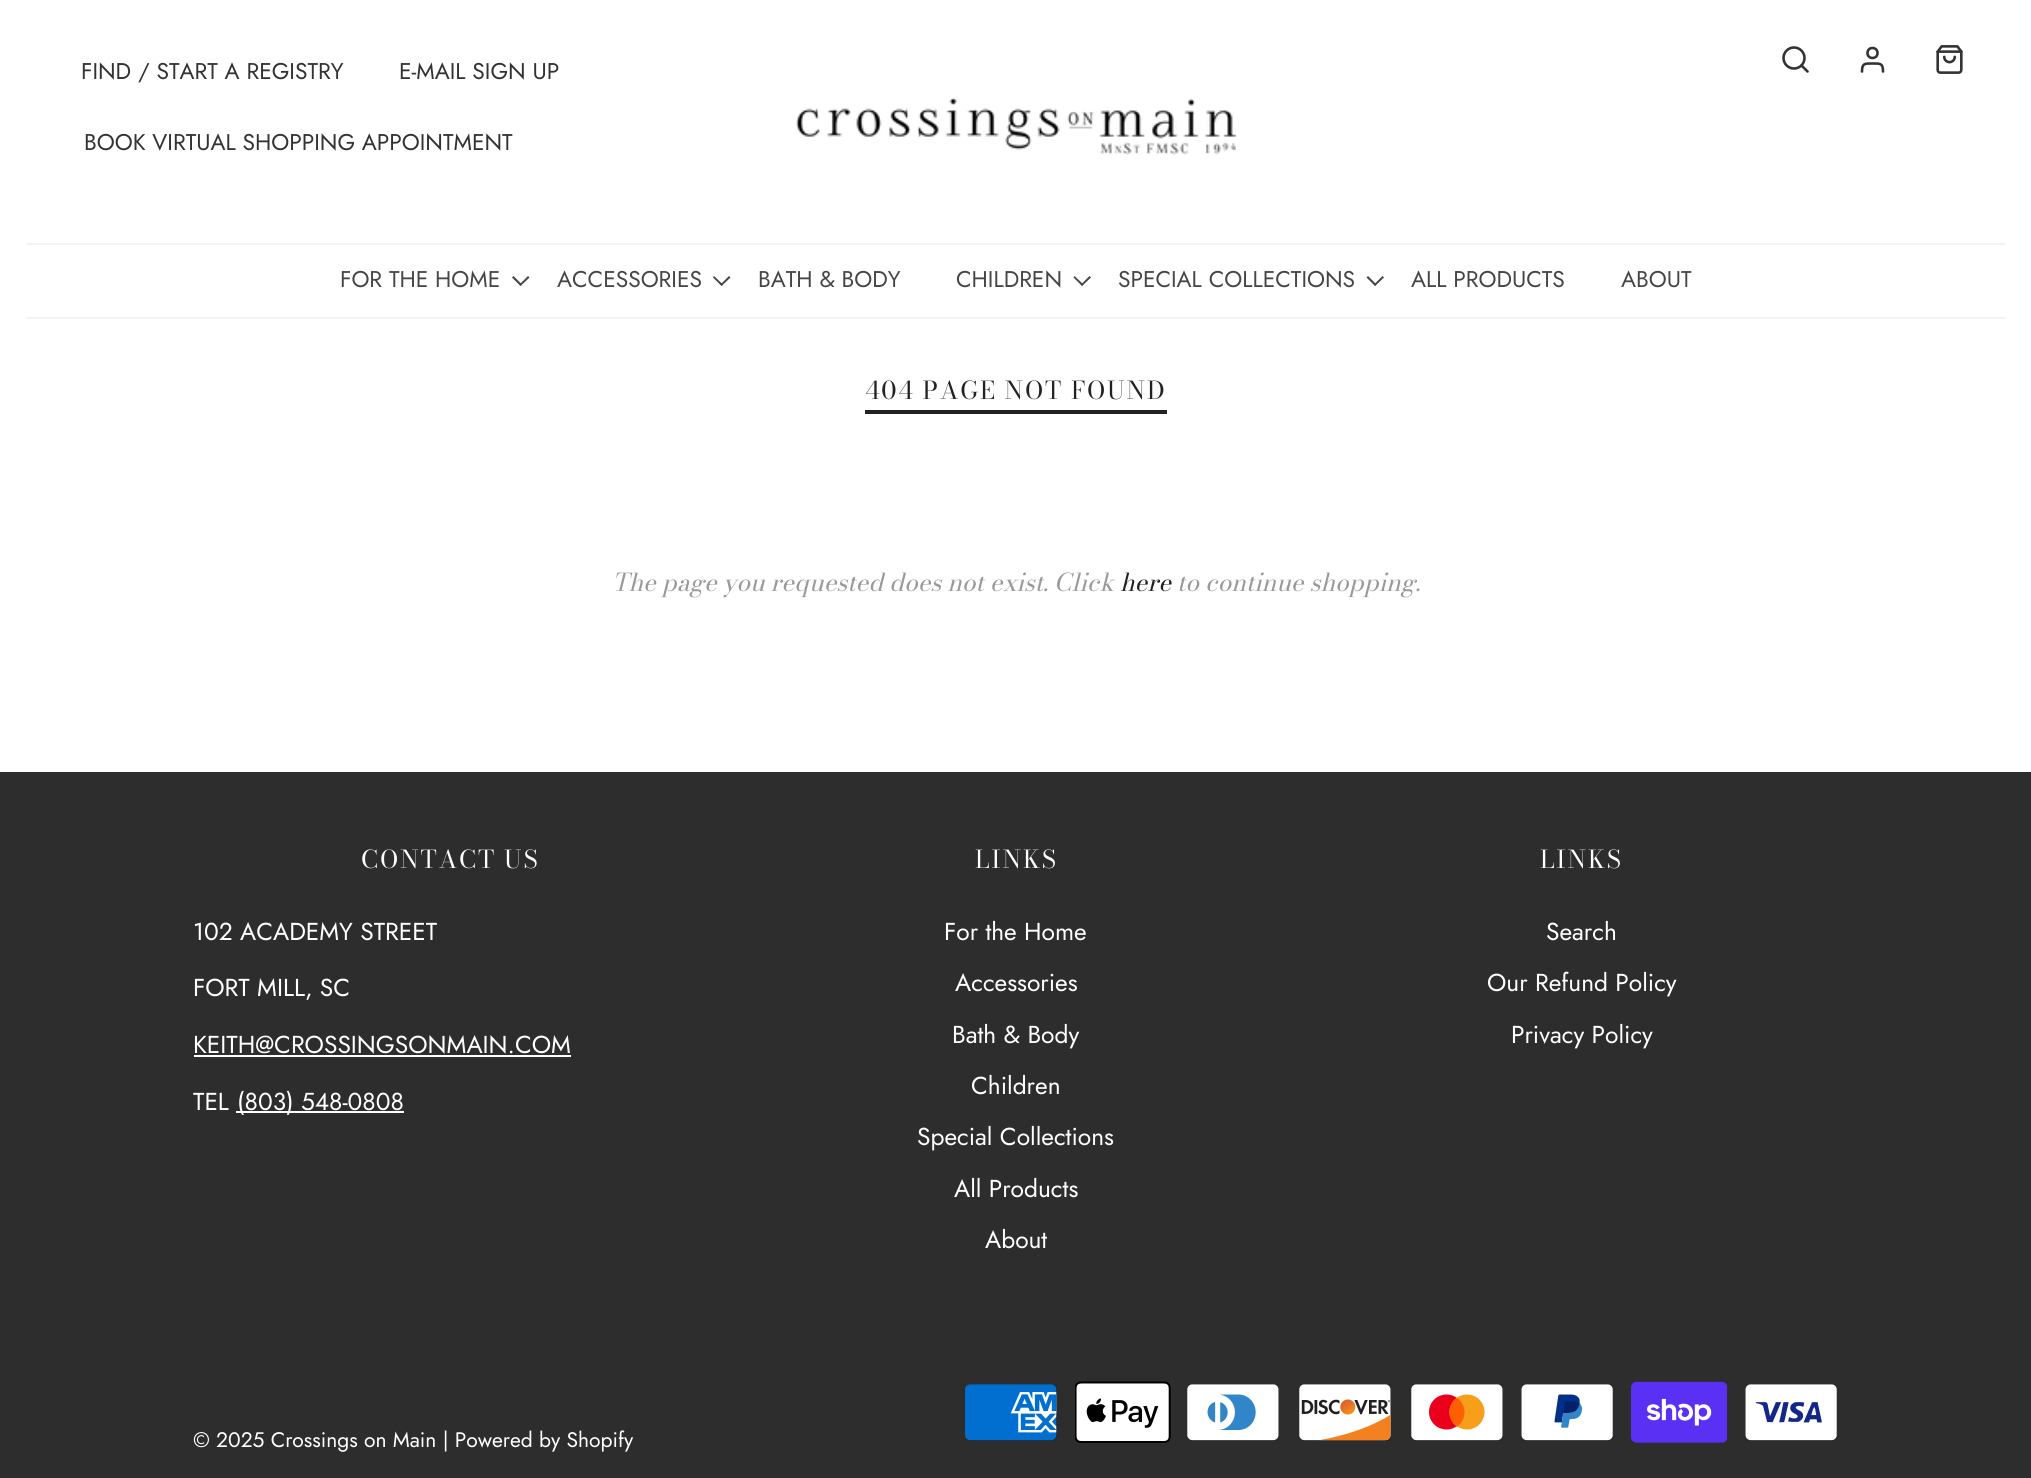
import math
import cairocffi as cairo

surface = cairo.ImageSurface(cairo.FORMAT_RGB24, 2031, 1478)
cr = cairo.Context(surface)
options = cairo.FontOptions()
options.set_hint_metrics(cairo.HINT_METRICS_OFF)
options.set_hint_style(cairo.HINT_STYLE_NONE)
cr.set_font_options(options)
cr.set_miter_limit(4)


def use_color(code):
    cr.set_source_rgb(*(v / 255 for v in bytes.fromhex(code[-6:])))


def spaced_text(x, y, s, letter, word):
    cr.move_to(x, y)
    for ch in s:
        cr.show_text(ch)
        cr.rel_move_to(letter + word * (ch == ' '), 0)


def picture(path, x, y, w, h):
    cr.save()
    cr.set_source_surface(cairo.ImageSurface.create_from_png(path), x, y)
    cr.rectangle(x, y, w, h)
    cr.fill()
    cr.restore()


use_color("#ffffff")
cr.paint()
cr.select_font_face("Jost")
cr.set_font_size(22.75)
use_color("#333333")
cr.move_to(81, 79)
cr.show_text("FIND / START A REGISTRY")
cr.move_to(399, 79)
cr.show_text("E-MAIL SIGN UP")
cr.move_to(84, 150)
cr.show_text("BOOK VIRTUAL SHOPPING APPOINTMENT")
picture("img1.png", 796, 97, 442, 58)
cr.arc(1794, 58, 10.5, 0, 2 * math.pi)
cr.set_line_width(2.6)
cr.stroke()
cr.new_path()
cr.move_to(1807.5, 71.5)
cr.line_to(1801.5, 65.5)
cr.set_line_cap(cairo.LINE_CAP_ROUND)
cr.set_line_join(cairo.LINE_JOIN_ROUND)
cr.stroke()
cr.new_path()
cr.move_to(1883, 71.5)
cr.curve_to(1883, 63, 1880, 63.5, 1872.5, 63.5)
cr.curve_to(1865, 63.5, 1862, 63, 1862, 71.5)
cr.stroke()
cr.arc(1872.5, 53, 5, 0, 2 * math.pi)
cr.set_line_cap(cairo.LINE_CAP_BUTT)
cr.set_line_join(cairo.LINE_JOIN_MITER)
cr.stroke()
picture("img2.png", 1936, 45, 27, 29)
use_color("#f3f3f3")
cr.rectangle(26, 243, 1980, 2)
cr.fill()
cr.rectangle(26, 317, 1980, 2)
cr.fill()
use_color("#464646")
cr.move_to(340, 287)
cr.show_text("FOR THE HOME")
cr.new_path()
cr.move_to(528, 276)
cr.line_to(529.5, 277.5)
cr.line_to(520.5, 286)
cr.line_to(519.5, 284.5)
cr.close_path()
cr.fill()
cr.new_path()
cr.move_to(513.5, 276)
cr.line_to(522, 284.5)
cr.line_to(520.5, 286)
cr.line_to(512, 277.5)
cr.close_path()
cr.fill()
cr.move_to(557, 287)
cr.show_text("ACCESSORIES")
cr.new_path()
cr.move_to(729, 276)
cr.line_to(730.5, 277.5)
cr.line_to(721.5, 286)
cr.line_to(720.5, 284.5)
cr.close_path()
cr.fill()
cr.new_path()
cr.move_to(714, 276)
cr.line_to(723, 284.5)
cr.line_to(721.5, 286)
cr.line_to(713, 277.5)
cr.close_path()
cr.fill()
cr.move_to(758, 287)
cr.show_text("BATH & BODY")
cr.move_to(956, 287)
cr.show_text("CHILDREN")
cr.new_path()
cr.move_to(1089.5, 276)
cr.line_to(1091, 277.5)
cr.line_to(1082, 286)
cr.line_to(1081, 284.5)
cr.close_path()
cr.fill()
cr.new_path()
cr.move_to(1074.5, 276)
cr.line_to(1083.5, 284.5)
cr.line_to(1082, 286)
cr.line_to(1073.5, 277.5)
cr.close_path()
cr.fill()
cr.move_to(1118, 287)
cr.show_text("SPECIAL COLLECTIONS")
cr.new_path()
cr.move_to(1382.5, 276)
cr.line_to(1384, 277.5)
cr.line_to(1375, 286)
cr.line_to(1374, 284.5)
cr.close_path()
cr.fill()
cr.new_path()
cr.move_to(1368, 276)
cr.line_to(1376.5, 284.5)
cr.line_to(1375, 286)
cr.line_to(1366.5, 277.5)
cr.close_path()
cr.fill()
cr.move_to(1411, 287)
cr.show_text("ALL PRODUCTS")
cr.move_to(1621, 287)
cr.show_text("ABOUT")
use_color("#222222")
cr.rectangle(865, 410, 302, 4)
cr.fill()
cr.select_font_face("Bodoni Moda")
cr.set_font_size(24.5)
spaced_text(865, 399, "404 PAGE NOT FOUND", 1.75, 0)
cr.select_font_face("Bodoni Moda", cairo.FONT_SLANT_ITALIC)
use_color("#999999")
spaced_text(612, 591, "The page you requested does not exist. Click", 0, -0.25)
use_color("#222222")
cr.move_to(1120, 591)
cr.show_text("here")
use_color("#999999")
cr.move_to(1177, 591)
cr.show_text("to continue shopping.")
use_color("#2d2d2d")
cr.rectangle(0, 772, 2031, 706)
cr.fill()
cr.select_font_face("Bodoni Moda")
use_color("#ffffff")
spaced_text(361, 868, "CONTACT US", 1.75, 0)
cr.select_font_face("Jost")
cr.move_to(193, 940)
cr.show_text("102 ACADEMY STREET")
cr.move_to(193, 996)
cr.show_text("FORT MILL, SC")
cr.move_to(193, 1053)
cr.show_text("KEITH@CROSSINGSONMAIN.COM")
cr.rectangle(194, 1055, 377, 2)
cr.fill()
cr.move_to(193, 1110)
cr.show_text("TEL")
cr.rectangle(236, 1111, 168, 2)
cr.fill()
cr.move_to(237, 1110)
cr.show_text("(803) 548-0808")
cr.select_font_face("Bodoni Moda")
spaced_text(975, 868, "LINKS", 1.75, 0)
cr.select_font_face("Jost")
cr.move_to(944, 940)
cr.show_text("For the Home")
cr.move_to(955, 991)
cr.show_text("Accessories")
cr.move_to(952, 1043)
cr.show_text("Bath & Body")
cr.move_to(971, 1094)
cr.show_text("Children")
cr.move_to(917, 1145)
cr.show_text("Special Collections")
cr.move_to(954, 1197)
cr.show_text("All Products")
cr.move_to(985, 1248)
cr.show_text("About")
cr.select_font_face("Bodoni Moda")
spaced_text(1540, 868, "LINKS", 1.75, 0)
cr.select_font_face("Jost")
cr.move_to(1546, 940)
cr.show_text("Search")
cr.move_to(1487, 991)
cr.show_text("Our Refund Policy")
cr.move_to(1511, 1043)
cr.show_text("Privacy Policy")
cr.set_font_size(21)
cr.move_to(193, 1447)
cr.show_text("© 2025 Crossings on Main | Powered by Shopify")
picture("img3.png", 965, 1384, 92, 57)
picture("img4.png", 1075, 1381, 96, 62)
picture("img5.png", 1187, 1384, 92, 57)
picture("img6.png", 1299, 1384, 92, 57)
picture("img7.png", 1411, 1384, 92, 57)
picture("img8.png", 1521, 1384, 92, 57)
picture("img9.png", 1631, 1381, 96, 62)
picture("img10.png", 1745, 1384, 92, 57)
surface.write_to_png("result.png")
